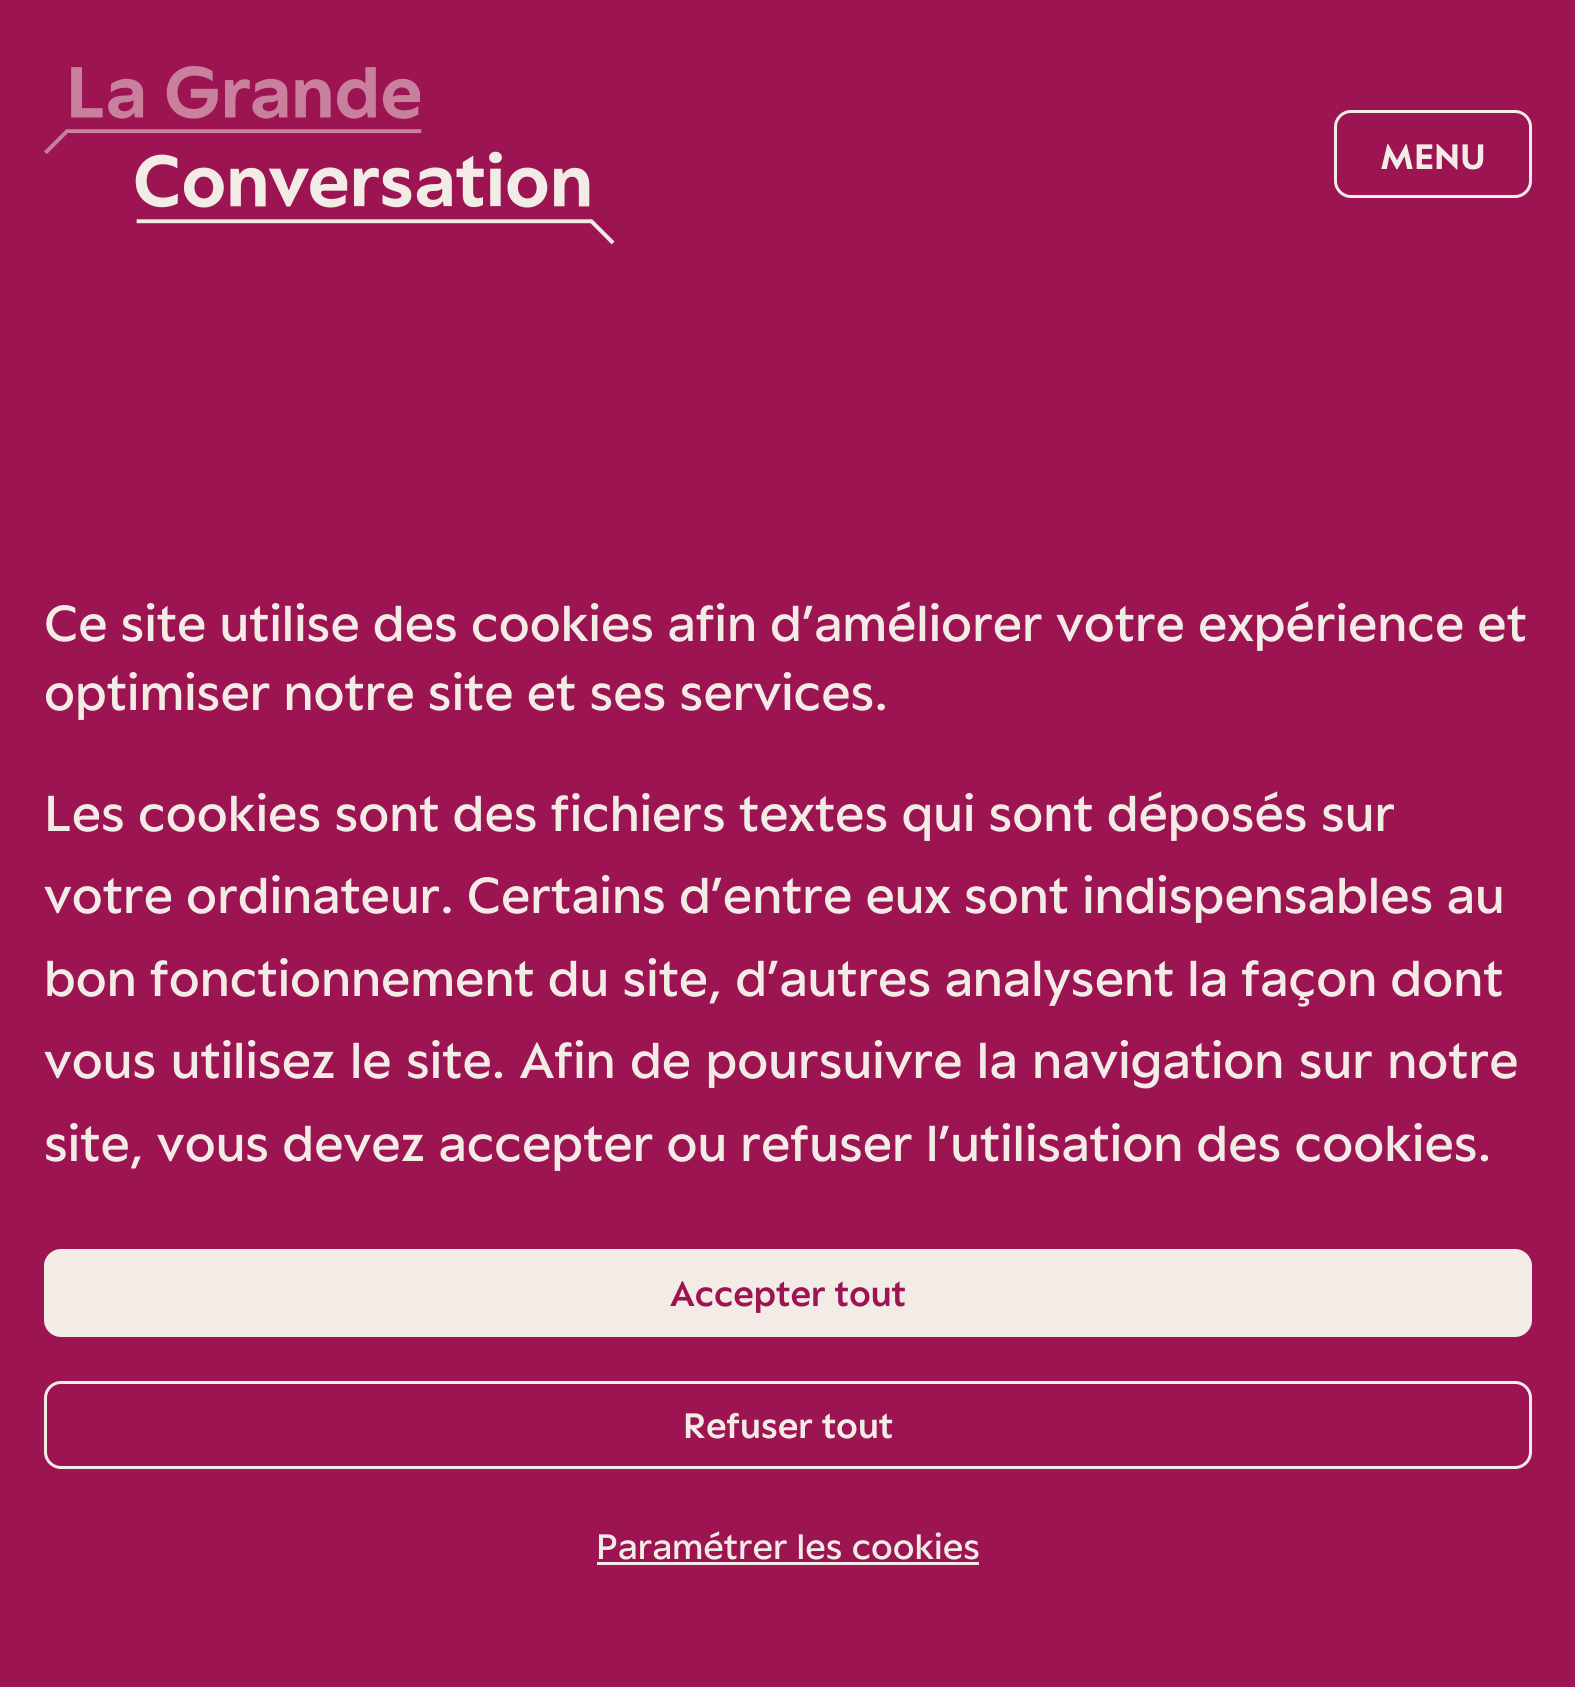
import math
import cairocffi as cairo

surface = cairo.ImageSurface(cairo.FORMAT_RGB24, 1575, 1687)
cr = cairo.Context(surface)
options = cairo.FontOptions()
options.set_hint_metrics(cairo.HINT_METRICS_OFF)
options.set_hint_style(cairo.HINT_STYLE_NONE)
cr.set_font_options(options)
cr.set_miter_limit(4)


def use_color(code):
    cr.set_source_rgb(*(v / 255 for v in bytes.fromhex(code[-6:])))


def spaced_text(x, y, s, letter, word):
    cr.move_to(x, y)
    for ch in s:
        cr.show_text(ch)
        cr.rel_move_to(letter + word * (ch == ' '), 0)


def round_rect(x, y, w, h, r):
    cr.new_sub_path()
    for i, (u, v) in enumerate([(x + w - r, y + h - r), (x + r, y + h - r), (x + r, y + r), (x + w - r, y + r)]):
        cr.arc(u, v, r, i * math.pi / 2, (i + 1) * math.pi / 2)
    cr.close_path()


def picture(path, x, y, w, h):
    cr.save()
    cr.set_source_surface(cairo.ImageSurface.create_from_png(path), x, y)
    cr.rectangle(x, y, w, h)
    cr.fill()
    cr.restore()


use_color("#9d1453")
cr.paint()
picture("img1.png", 44, 66, 571, 178)
round_rect(1335.5, 111.5, 195, 85, 15.5)
use_color("#f3ece6")
cr.set_line_width(3)
cr.stroke()
cr.select_font_face("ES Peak", cairo.FONT_SLANT_NORMAL, cairo.FONT_WEIGHT_BOLD)
cr.set_font_size(38.5)
cr.move_to(1380, 169)
cr.show_text("MENU")
cr.select_font_face("ES Peak Medium")
cr.set_font_size(55)
cr.move_to(44, 641)
cr.show_text("Ce site utilise des cookies afin d’améliorer votre expérience et")
cr.move_to(44, 710)
cr.show_text("optimiser notre site et ses services.")
cr.move_to(44, 831)
cr.show_text("Les cookies sont des fichiers textes qui sont déposés sur")
cr.move_to(44, 913)
cr.show_text("votre ordinateur. Certains d’entre eux sont indispensables au")
cr.move_to(44, 996)
cr.show_text("bon fonctionnement du site, d’autres analysent la façon dont")
spaced_text(44, 1078, "vous utilisez le site. Afin de poursuivre la navigation sur notre", 0, 1.25)
cr.move_to(44, 1161)
cr.show_text("site, vous devez accepter ou refuser l’utilisation des cookies.")
round_rect(45.5, 1250.5, 1485, 85, 15.5)
cr.fill_preserve()
cr.stroke()
cr.select_font_face("ES Peak SemiBold")
cr.set_font_size(38.5)
use_color("#9d1453")
cr.move_to(670, 1306)
cr.show_text("Accepter tout")
round_rect(45.5, 1382.5, 1485, 85, 15.5)
use_color("#f3ece6")
cr.stroke()
cr.move_to(683, 1438)
cr.show_text("Refuser tout")
cr.select_font_face("ES Peak Medium")
cr.move_to(596, 1559)
cr.show_text("Paramétrer les cookies")
cr.rectangle(597, 1562, 382, 3)
cr.fill()
surface.write_to_png("result.png")
